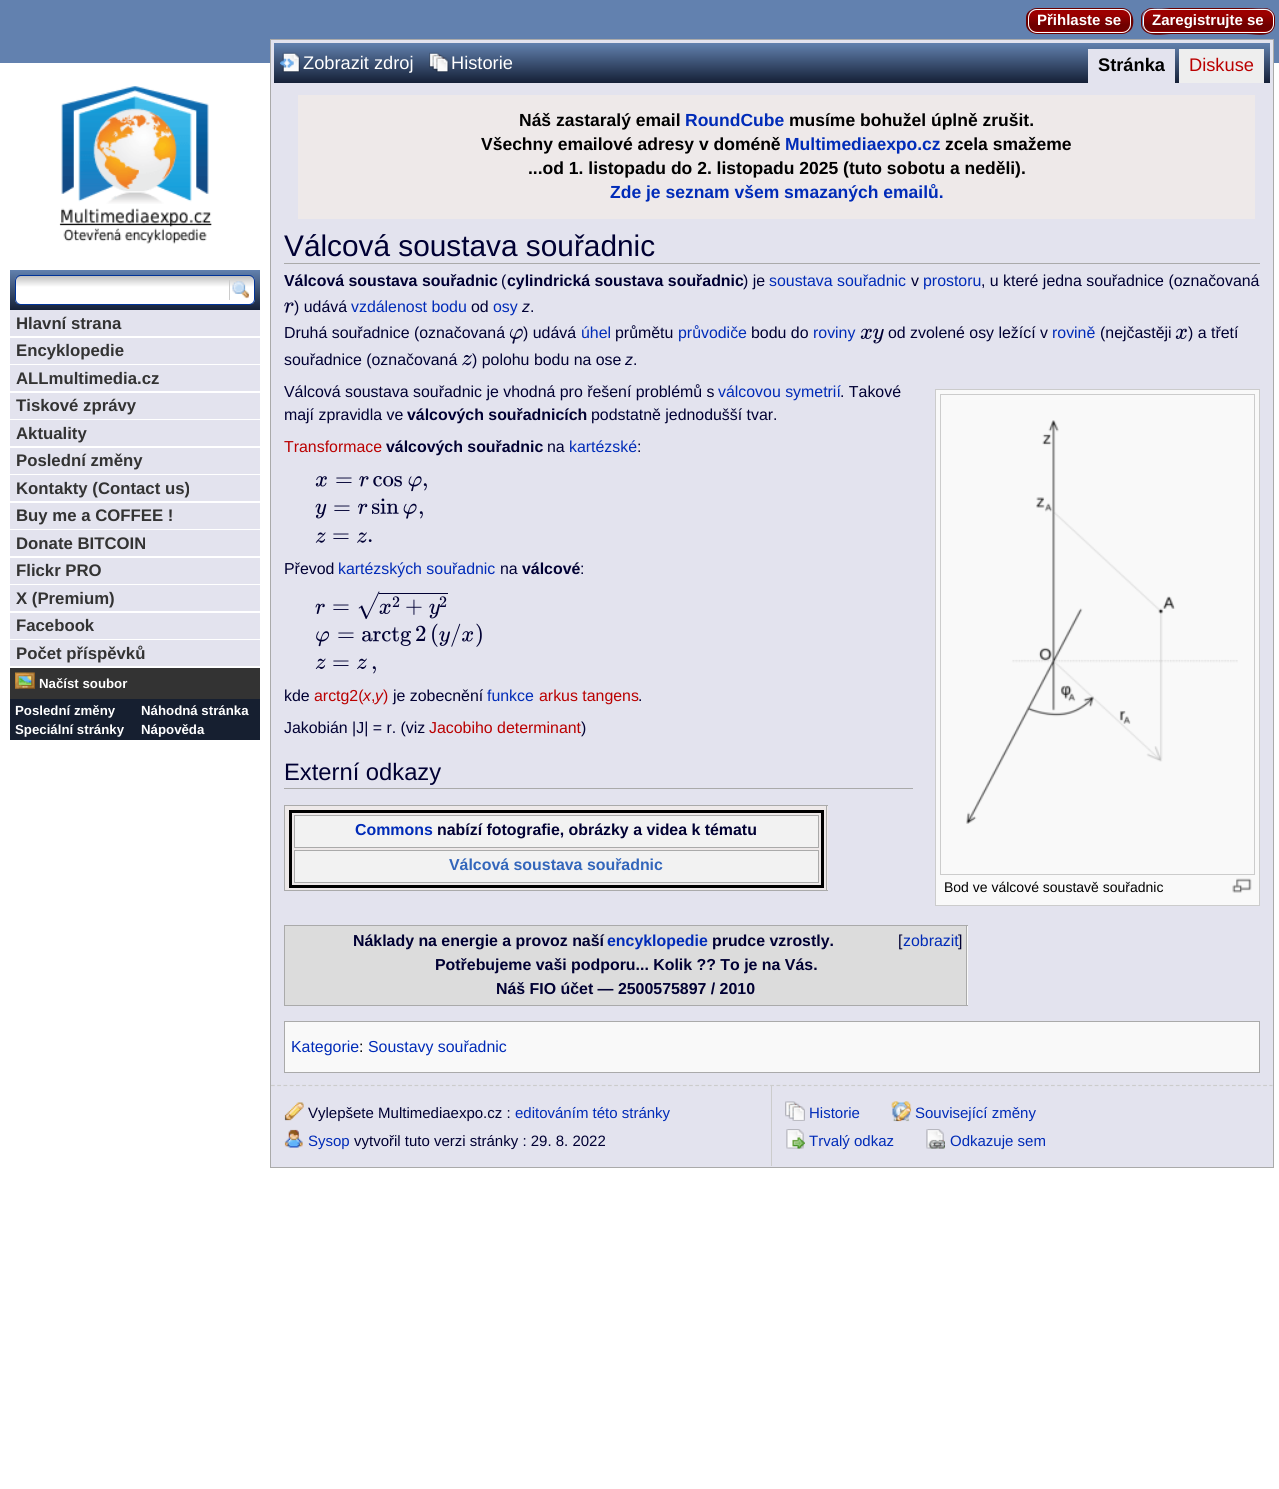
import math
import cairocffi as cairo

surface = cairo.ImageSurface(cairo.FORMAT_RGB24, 1279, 1489)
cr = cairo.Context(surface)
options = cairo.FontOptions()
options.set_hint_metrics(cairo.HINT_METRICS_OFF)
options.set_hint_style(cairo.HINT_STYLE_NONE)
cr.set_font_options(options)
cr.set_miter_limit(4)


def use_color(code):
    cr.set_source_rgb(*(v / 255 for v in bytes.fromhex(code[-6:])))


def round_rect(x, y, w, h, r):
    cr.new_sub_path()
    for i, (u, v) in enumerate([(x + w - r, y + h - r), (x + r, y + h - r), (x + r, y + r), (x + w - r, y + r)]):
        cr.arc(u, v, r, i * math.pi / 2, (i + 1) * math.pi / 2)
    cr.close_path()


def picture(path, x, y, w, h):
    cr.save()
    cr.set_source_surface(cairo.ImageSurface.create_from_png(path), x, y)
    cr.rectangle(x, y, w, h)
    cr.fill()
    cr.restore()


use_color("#ffffff")
cr.paint()
use_color("#6281af")
cr.rectangle(0, 0, 1279, 63)
cr.fill()
use_color("#6a0000")
cr.new_path()
cr.move_to(1034, 9)
cr.curve_to(1029, 10, 1026, 13, 1026, 18)
cr.line_to(1026, 24)
cr.curve_to(1026, 29, 1030, 33, 1035, 33)
cr.line_to(1121, 33)
cr.line_to(1125, 32)
cr.line_to(1051, 32)
cr.curve_to(1041, 32, 1028, 36, 1028, 22)
cr.curve_to(1028, 17, 1028, 11, 1034, 9)
cr.close_path()
cr.fill()
cr.new_path()
cr.move_to(1035, 32)
cr.curve_to(1039, 34, 1051, 33, 1052, 33)
cr.line_to(1110, 33)
cr.curve_to(1111, 33, 1123, 34, 1128, 32)
cr.curve_to(1136, 29, 1135, 10, 1125, 9)
cr.curve_to(1130, 10, 1131, 16, 1131, 21)
cr.line_to(1131, 27)
cr.curve_to(1129, 30, 1127, 32, 1124, 32)
cr.close_path()
cr.fill()
cr.new_path()
cr.move_to(1037, 8)
cr.curve_to(1034, 8, 1031, 9, 1030, 12)
cr.curve_to(1031, 10, 1034, 9, 1036, 9)
cr.line_to(1122, 9)
cr.curve_to(1126, 9, 1129, 11, 1130, 14)
cr.curve_to(1129, 10, 1126, 8, 1122, 8)
cr.close_path()
cr.fill()
cr.new_path()
cr.move_to(1028, 28)
cr.curve_to(1029, 31, 1033, 34, 1037, 34)
cr.line_to(1122, 34)
cr.curve_to(1127, 34, 1130, 31, 1131, 26)
cr.curve_to(1130, 30, 1127, 32, 1122, 32)
cr.line_to(1036, 32)
cr.curve_to(1033, 32, 1030, 30, 1028, 28)
cr.close_path()
cr.fill()
cr.save()
round_rect(1028, 9, 103, 24, 9)
cr.clip()
gradient = cairo.LinearGradient(1029, 14, 1029, 25)
gradient.add_color_stop_rgba(0, 0.616, 0, 0, 1)
gradient.add_color_stop_rgba(1, 0.439, 0, 0, 1)
cr.set_source(gradient)
cr.rectangle(1028, 10, 103, 21)
cr.fill()
gradient = cairo.LinearGradient(1029, 36, 1029, 46)
gradient.add_color_stop_rgba(0, 0.616, 0, 0, 1)
gradient.add_color_stop_rgba(1, 0.439, 0, 0, 1)
cr.set_source(gradient)
cr.rectangle(1028, 31, 103, 2)
cr.fill()
cr.restore()
round_rect(1028.5, 9.5, 102, 23, 8.5)
use_color("#ffffff")
cr.set_line_width(1)
cr.stroke()
cr.select_font_face("Liberation Sans", cairo.FONT_SLANT_NORMAL, cairo.FONT_WEIGHT_BOLD)
cr.set_font_size(15)
cr.move_to(1037, 25)
cr.show_text("Přihlaste se")
use_color("#6a0000")
cr.new_path()
cr.move_to(1149, 9)
cr.curve_to(1144, 10, 1141, 13, 1141, 18)
cr.line_to(1141, 24)
cr.curve_to(1141, 29, 1145, 33, 1150, 33)
cr.line_to(1264, 33)
cr.curve_to(1266, 33, 1267, 33, 1269, 32)
cr.line_to(1265, 32)
cr.line_to(1151, 32)
cr.curve_to(1146, 32, 1142, 29, 1142, 24)
cr.line_to(1142, 18)
cr.curve_to(1142, 13, 1145, 10, 1149, 9)
cr.close_path()
cr.fill()
cr.new_path()
cr.move_to(1150, 32)
cr.line_to(1153, 33)
cr.line_to(1266, 33)
cr.curve_to(1271, 33, 1275, 29, 1275, 24)
cr.line_to(1275, 18)
cr.curve_to(1275, 14, 1272, 10, 1268, 9)
cr.curve_to(1271, 10, 1274, 14, 1274, 18)
cr.line_to(1274, 24)
cr.curve_to(1274, 29, 1270, 32, 1265, 32)
cr.close_path()
cr.fill()
cr.new_path()
cr.move_to(1152, 8)
cr.curve_to(1149, 8, 1146, 9, 1145, 12)
cr.curve_to(1150, 6, 1167, 9, 1170, 9)
cr.line_to(1246, 9)
cr.curve_to(1265, 9, 1275, 4, 1274, 24)
cr.curve_to(1275, 18, 1273, 8, 1265, 8)
cr.close_path()
cr.fill()
cr.new_path()
cr.move_to(1143, 28)
cr.curve_to(1146, 38, 1165, 34, 1171, 34)
cr.line_to(1246, 34)
cr.curve_to(1256, 34, 1274, 39, 1274, 24)
cr.line_to(1274, 17)
cr.curve_to(1275, 37, 1264, 32, 1246, 32)
cr.line_to(1170, 32)
cr.curve_to(1165, 32, 1148, 36, 1143, 28)
cr.close_path()
cr.fill()
cr.save()
round_rect(1143, 9, 131, 24, 9)
cr.clip()
gradient = cairo.LinearGradient(1144, 14, 1144, 25)
gradient.add_color_stop_rgba(0, 0.616, 0, 0, 1)
gradient.add_color_stop_rgba(1, 0.439, 0, 0, 1)
cr.set_source(gradient)
cr.rectangle(1143, 10, 131, 21)
cr.fill()
gradient = cairo.LinearGradient(1144, 36, 1144, 46)
gradient.add_color_stop_rgba(0, 0.616, 0, 0, 1)
gradient.add_color_stop_rgba(1, 0.439, 0, 0, 1)
cr.set_source(gradient)
cr.rectangle(1143, 31, 131, 2)
cr.fill()
cr.restore()
round_rect(1143.5, 9.5, 130, 23, 8.5)
use_color("#ffffff")
cr.stroke()
cr.move_to(1152, 25)
cr.show_text("Zaregistrujte se")
picture("img1.png", 59, 86, 153, 158)
gradient = cairo.LinearGradient(10, 270, 10, 310)
gradient.add_color_stop_rgba(0, 0.384, 0.506, 0.686, 1)
gradient.add_color_stop_rgba(1, 0.082, 0.125, 0.212, 1)
cr.set_source(gradient)
cr.rectangle(10, 270, 250, 40)
cr.fill()
cr.save()
round_rect(15, 275, 240, 30, 6)
cr.clip()
gradient = cairo.LinearGradient(16, 276, 16, 287)
gradient.add_color_stop_rgba(0, 0.749, 0.749, 0.749, 1)
gradient.add_color_stop_rgba(1, 1, 1, 1, 1)
cr.set_source(gradient)
cr.rectangle(15, 276, 240, 28)
cr.fill()
cr.restore()
round_rect(15.5, 275.5, 239, 29, 5.5)
use_color("#003399")
cr.stroke()
picture("img2.png", 232, 281, 17, 18)
use_color("#cccccc")
cr.rectangle(229, 280, 1, 20)
cr.fill()
use_color("#e3e3ee")
cr.rectangle(10, 310, 250, 26)
cr.fill()
cr.set_font_size(16.75)
use_color("#333333")
cr.move_to(16, 329)
cr.show_text("Hlavní strana")
use_color("#e3e3ee")
cr.rectangle(10, 338, 250, 26)
cr.fill()
use_color("#333333")
cr.move_to(16, 356)
cr.show_text("Encyklopedie")
use_color("#e3e3ee")
cr.rectangle(10, 365, 250, 26)
cr.fill()
use_color("#333333")
cr.move_to(16, 384)
cr.show_text("ALLmultimedia.cz")
use_color("#e3e3ee")
cr.rectangle(10, 393, 250, 26)
cr.fill()
use_color("#333333")
cr.move_to(16, 411)
cr.show_text("Tiskové zprávy")
use_color("#e3e3ee")
cr.rectangle(10, 420, 250, 26)
cr.fill()
use_color("#333333")
cr.move_to(16, 439)
cr.show_text("Aktuality")
use_color("#e3e3ee")
cr.rectangle(10, 448, 250, 26)
cr.fill()
use_color("#333333")
cr.move_to(16, 466)
cr.show_text("Poslední změny")
use_color("#e3e3ee")
cr.rectangle(10, 475, 250, 26)
cr.fill()
use_color("#333333")
cr.move_to(16, 494)
cr.show_text("Kontakty (Contact us)")
use_color("#e3e3ee")
cr.rectangle(10, 503, 250, 26)
cr.fill()
use_color("#333333")
cr.move_to(16, 521)
cr.show_text("Buy me a COFFEE !")
use_color("#e3e3ee")
cr.rectangle(10, 530, 250, 26)
cr.fill()
use_color("#333333")
cr.move_to(16, 549)
cr.show_text("Donate BITCOIN")
use_color("#e3e3ee")
cr.rectangle(10, 558, 250, 26)
cr.fill()
use_color("#333333")
cr.move_to(16, 576)
cr.show_text("Flickr PRO")
use_color("#e3e3ee")
cr.rectangle(10, 585, 250, 26)
cr.fill()
use_color("#333333")
cr.move_to(16, 604)
cr.show_text("X (Premium)")
use_color("#e3e3ee")
cr.rectangle(10, 613, 250, 26)
cr.fill()
use_color("#333333")
cr.move_to(16, 631)
cr.show_text("Facebook")
use_color("#e3e3ee")
cr.rectangle(10, 640, 250, 26)
cr.fill()
use_color("#333333")
cr.move_to(16, 659)
cr.show_text("Počet příspěvků")
cr.rectangle(10, 668, 250, 31)
cr.fill()
picture("img3.png", 15, 672, 20, 17)
cr.set_font_size(13.25)
use_color("#ffffff")
cr.move_to(39, 688)
cr.show_text("Načíst soubor")
use_color("#161f30")
cr.rectangle(10, 699, 250, 41)
cr.fill()
use_color("#ffffff")
cr.move_to(15, 715)
cr.show_text("Poslední změny")
cr.move_to(15, 734)
cr.show_text("Speciální stránky")
cr.move_to(141, 715)
cr.show_text("Náhodná stránka")
cr.move_to(141, 734)
cr.show_text("Nápověda")
use_color("#e3e3ee")
cr.rectangle(270.5, 39.5, 1003, 1128)
cr.fill_preserve()
use_color("#aaaaaa")
cr.stroke()
gradient = cairo.LinearGradient(274, 43, 274, 83)
gradient.add_color_stop_rgba(0, 0.384, 0.506, 0.686, 1)
gradient.add_color_stop_rgba(1, 0.082, 0.125, 0.212, 1)
cr.set_source(gradient)
cr.rectangle(274, 43, 996, 40)
cr.fill()
picture("img4.png", 280, 52, 20, 21)
cr.select_font_face("Liberation Sans")
cr.set_font_size(18.25)
use_color("#ffffff")
cr.move_to(303, 69)
cr.show_text("Zobrazit zdroj")
picture("img5.png", 429, 52, 20, 21)
cr.move_to(451, 69)
cr.show_text("Historie")
use_color("#e3e3ee")
cr.rectangle(1088, 49, 87, 34)
cr.fill()
cr.select_font_face("Liberation Sans", cairo.FONT_SLANT_NORMAL, cairo.FONT_WEIGHT_BOLD)
use_color("#000000")
cr.move_to(1098, 71)
cr.show_text("Stránka")
use_color("#eeeeee")
cr.rectangle(1179, 49, 85, 34)
cr.fill()
cr.select_font_face("Liberation Sans")
use_color("#ba0000")
cr.move_to(1189, 71)
cr.show_text("Diskuse")
use_color("#eee9e9")
cr.rectangle(298, 95, 957, 124)
cr.fill()
cr.select_font_face("Liberation Sans", cairo.FONT_SLANT_NORMAL, cairo.FONT_WEIGHT_BOLD)
cr.set_font_size(17.5)
use_color("#000000")
cr.move_to(519, 126)
cr.show_text("Náš zastaralý email")
use_color("#002bb8")
cr.move_to(685, 126)
cr.show_text("RoundCube")
use_color("#000000")
cr.move_to(789, 126)
cr.show_text("musíme bohužel úplně zrušit.")
cr.move_to(481, 150)
cr.show_text("Všechny emailové adresy v doméně")
use_color("#002bb8")
cr.move_to(785, 150)
cr.show_text("Multimediaexpo.cz")
use_color("#000000")
cr.move_to(945, 150)
cr.show_text("zcela smažeme")
cr.move_to(528, 174)
cr.show_text("...od 1. listopadu do 2. listopadu 2025 (tuto sobotu a neděli).")
use_color("#002bb8")
cr.move_to(610, 198)
cr.show_text("Zde je seznam všem smazaných emailů.")
use_color("#aaaaaa")
cr.rectangle(284, 263, 976, 1)
cr.fill()
cr.select_font_face("Liberation Sans")
cr.set_font_size(29.8)
use_color("#000033")
cr.move_to(284, 256)
cr.show_text("Válcová soustava souřadnic")
cr.select_font_face("Liberation Sans", cairo.FONT_SLANT_NORMAL, cairo.FONT_WEIGHT_BOLD)
cr.set_font_size(15.9)
cr.move_to(284, 286)
cr.show_text("Válcová soustava souřadnic")
cr.select_font_face("Liberation Sans")
cr.move_to(501, 286)
cr.show_text("(")
cr.select_font_face("Liberation Sans", cairo.FONT_SLANT_NORMAL, cairo.FONT_WEIGHT_BOLD)
cr.move_to(507, 286)
cr.show_text("cylindrická soustava souřadnic")
cr.select_font_face("Liberation Sans")
cr.move_to(743, 286)
cr.show_text(") je")
use_color("#002bb8")
cr.move_to(769, 286)
cr.show_text("soustava souřadnic")
use_color("#000033")
cr.move_to(911, 286)
cr.show_text("v")
use_color("#002bb8")
cr.move_to(923, 286)
cr.show_text("prostoru")
use_color("#000033")
cr.move_to(981, 286)
cr.show_text(", u které jedna souřadnice (označovaná")
picture("img6.png", 284, 302, 10, 11)
cr.move_to(294, 312)
cr.show_text(") udává")
use_color("#002bb8")
cr.move_to(351, 312)
cr.show_text("vzdálenost bodu")
use_color("#000033")
cr.move_to(471, 312)
cr.show_text("od")
use_color("#002bb8")
cr.move_to(493, 312)
cr.show_text("osy")
cr.select_font_face("Liberation Sans", cairo.FONT_SLANT_ITALIC)
use_color("#000033")
cr.move_to(522, 312)
cr.show_text("z")
cr.select_font_face("Liberation Sans")
cr.move_to(530, 312)
cr.show_text(".")
cr.move_to(284, 338)
cr.show_text("Druhá souřadnice (označovaná")
picture("img7.png", 509, 328, 14, 16)
cr.move_to(523, 338)
cr.show_text(") udává")
use_color("#002bb8")
cr.move_to(581, 338)
cr.show_text("úhel")
use_color("#000033")
cr.move_to(615, 338)
cr.show_text("průmětu")
use_color("#002bb8")
cr.move_to(678, 338)
cr.show_text("průvodiče")
use_color("#000033")
cr.move_to(751, 338)
cr.show_text("bodu do")
use_color("#002bb8")
cr.move_to(813, 338)
cr.show_text("roviny")
picture("img8.png", 860, 328, 12, 11)
picture("img9.png", 873, 328, 11, 16)
use_color("#000033")
cr.move_to(888, 338)
cr.show_text("od zvolené osy ležící v")
use_color("#002bb8")
cr.move_to(1052, 338)
cr.show_text("rovině")
use_color("#000033")
cr.move_to(1100, 338)
cr.show_text("(nejčastěji")
picture("img8.png", 1175, 328, 12, 11)
cr.move_to(1188, 338)
cr.show_text(") a třetí")
cr.move_to(284, 365)
cr.show_text("souřadnice (označovaná")
cr.move_to(472, 365)
cr.show_text(") polohu bodu na ose")
picture("img10.png", 462, 354, 10, 12)
cr.select_font_face("Liberation Sans", cairo.FONT_SLANT_ITALIC)
cr.move_to(625, 365)
cr.show_text("z")
cr.select_font_face("Liberation Sans")
cr.move_to(633, 365)
cr.show_text(".")
cr.move_to(284, 397)
cr.show_text("Válcová soustava souřadnic je vhodná pro řešení problémů s")
use_color("#002bb8")
cr.move_to(718, 397)
cr.show_text("válcovou symetrií")
use_color("#000033")
cr.move_to(840, 397)
cr.show_text(". Takové")
cr.move_to(284, 420)
cr.show_text("mají zpravidla ve")
cr.select_font_face("Liberation Sans", cairo.FONT_SLANT_NORMAL, cairo.FONT_WEIGHT_BOLD)
cr.move_to(407, 420)
cr.show_text("válcových souřadnicích")
cr.select_font_face("Liberation Sans")
cr.move_to(591, 420)
cr.show_text("podstatně jednodušší tvar.")
use_color("#ba0000")
cr.move_to(284, 452)
cr.show_text("Transformace")
cr.select_font_face("Liberation Sans", cairo.FONT_SLANT_NORMAL, cairo.FONT_WEIGHT_BOLD)
use_color("#000033")
cr.move_to(386, 452)
cr.show_text("válcových souřadnic")
cr.select_font_face("Liberation Sans")
cr.move_to(547, 452)
cr.show_text("na")
use_color("#002bb8")
cr.move_to(569, 452)
cr.show_text("kartézské")
use_color("#000033")
cr.move_to(637, 452)
cr.show_text(":")
picture("img11.png", 315, 476, 12, 11)
cr.select_font_face("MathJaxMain")
cr.set_font_size(23)
cr.move_to(335, 486)
cr.show_text("=")
picture("img12.png", 359, 476, 10, 11)
picture("img13.png", 373, 476, 9, 11)
picture("img14.png", 383, 476, 11, 11)
picture("img15.png", 394, 476, 8, 11)
picture("img16.png", 408, 476, 14, 16)
cr.move_to(422, 486)
cr.show_text(",")
picture("img17.png", 315, 503, 12, 16)
cr.move_to(333, 514)
cr.show_text("=")
picture("img18.png", 358, 503, 10, 11)
picture("img19.png", 372, 503, 8, 11)
picture("img20.png", 380, 498, 6, 16)
picture("img21.png", 386, 503, 13, 11)
picture("img22.png", 403, 503, 14, 16)
cr.move_to(418, 514)
cr.show_text(",")
picture("img23.png", 315, 532, 11, 11)
cr.move_to(332, 542)
cr.show_text("=")
picture("img24.png", 357, 532, 10, 11)
cr.move_to(367, 542)
cr.show_text(".")
cr.select_font_face("Liberation Sans")
cr.set_font_size(15.9)
cr.move_to(284, 574)
cr.show_text("Převod")
use_color("#002bb8")
cr.move_to(338, 574)
cr.show_text("kartézských souřadnic")
use_color("#000033")
cr.move_to(500, 574)
cr.show_text("na")
cr.select_font_face("Liberation Sans", cairo.FONT_SLANT_NORMAL, cairo.FONT_WEIGHT_BOLD)
cr.move_to(522, 574)
cr.show_text("válcové")
cr.select_font_face("Liberation Sans")
cr.move_to(580, 574)
cr.show_text(":")
picture("img25.png", 315, 603, 10, 11)
cr.select_font_face("MathJaxMain")
cr.set_font_size(23)
cr.move_to(332, 613)
cr.show_text("=")
cr.select_font_face("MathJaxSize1")
cr.move_to(356, 611)
cr.show_text("√")
cr.rectangle(379, 593, 69, 1)
cr.fill()
cr.select_font_face("MathJaxMain")
cr.set_font_size(16)
cr.move_to(392, 607)
cr.show_text("2")
picture("img26.png", 379, 603, 12, 11)
cr.set_font_size(23)
cr.move_to(405, 613)
cr.show_text("+")
cr.set_font_size(16)
cr.move_to(439, 607)
cr.show_text("2")
picture("img27.png", 429, 603, 11, 16)
picture("img28.png", 316, 631, 14, 16)
cr.set_font_size(23)
cr.move_to(337, 641)
cr.show_text("=")
picture("img29.png", 362, 631, 11, 11)
picture("img30.png", 372, 631, 9, 11)
picture("img31.png", 382, 631, 9, 11)
picture("img32.png", 391, 627, 8, 15)
picture("img33.png", 400, 630, 11, 16)
cr.move_to(415, 641)
cr.show_text("2")
cr.move_to(430, 641)
cr.show_text("(")
picture("img34.png", 439, 631, 11, 15)
cr.move_to(450, 641)
cr.show_text("/")
picture("img35.png", 462, 631, 12, 11)
cr.move_to(475, 641)
cr.show_text(")")
picture("img36.png", 315, 658, 11, 11)
cr.move_to(332, 669)
cr.show_text("=")
picture("img37.png", 357, 658, 10, 11)
cr.move_to(371, 669)
cr.show_text(",")
cr.select_font_face("Liberation Sans")
cr.set_font_size(15.9)
cr.move_to(284, 701)
cr.show_text("kde")
use_color("#ba0000")
cr.move_to(314, 701)
cr.show_text("arctg2(")
cr.select_font_face("Liberation Sans", cairo.FONT_SLANT_ITALIC)
cr.move_to(363, 701)
cr.show_text("x")
cr.select_font_face("Liberation Sans")
cr.move_to(371, 701)
cr.show_text(",")
cr.select_font_face("Liberation Sans", cairo.FONT_SLANT_ITALIC)
cr.move_to(375, 701)
cr.show_text("y")
cr.select_font_face("Liberation Sans")
cr.move_to(383, 701)
cr.show_text(")")
use_color("#000033")
cr.move_to(393, 701)
cr.show_text("je zobecnění")
use_color("#002bb8")
cr.move_to(487, 701)
cr.show_text("funkce")
use_color("#ba0000")
cr.move_to(539, 701)
cr.show_text("arkus tangens")
use_color("#000033")
cr.move_to(638, 701)
cr.show_text(".")
cr.move_to(284, 733)
cr.show_text("Jakobián |J| = r. (viz")
use_color("#ba0000")
cr.move_to(429, 733)
cr.show_text("Jacobiho determinant")
use_color("#000033")
cr.move_to(581, 733)
cr.show_text(")")
use_color("#aaaaaa")
cr.rectangle(284, 788, 629, 1)
cr.fill()
cr.set_font_size(23.75)
use_color("#000033")
cr.move_to(284, 780)
cr.show_text("Externí odkazy")
use_color("#eee9e9")
cr.rectangle(285, 806, 543, 84)
cr.fill()
use_color("#aaaaaa")
cr.rectangle(284, 805, 544, 1)
cr.fill()
cr.rectangle(826, 805, 1, 86)
cr.fill()
cr.rectangle(284, 890, 544, 1)
cr.fill()
cr.rectangle(284, 805, 1, 86)
cr.fill()
cr.rectangle(290.5, 811.5, 532, 75)
use_color("#000000")
cr.set_line_width(3)
cr.stroke()
use_color("#f2f2f2")
cr.rectangle(294.5, 815.5, 524, 32)
cr.fill_preserve()
use_color("#aaaaaa")
cr.set_line_width(1)
cr.stroke()
cr.select_font_face("Liberation Sans", cairo.FONT_SLANT_NORMAL, cairo.FONT_WEIGHT_BOLD)
cr.set_font_size(15.9)
use_color("#002bb8")
cr.move_to(355, 835)
cr.show_text("Commons")
use_color("#000033")
cr.move_to(437, 835)
cr.show_text("nabízí fotografie, obrázky a videa k tématu")
use_color("#f2f2f2")
cr.rectangle(294.5, 850.5, 524, 32)
cr.fill_preserve()
use_color("#aaaaaa")
cr.stroke()
use_color("#3366bb")
cr.move_to(449, 870)
cr.show_text("Válcová soustava souřadnic")
use_color("#f9f9f9")
cr.rectangle(935.5, 389.5, 324, 516)
cr.fill_preserve()
use_color("#cccccc")
cr.stroke()
cr.rectangle(940.5, 394.5, 314, 480)
cr.stroke()
picture("img38.png", 966, 420, 272, 404)
cr.select_font_face("Liberation Sans")
cr.set_font_size(14)
use_color("#000000")
cr.move_to(944, 892)
cr.show_text("Bod ve válcové soustavě souřadnic")
picture("img39.png", 1232, 878, 20, 15)
use_color("#f9f9f9")
cr.rectangle(967, 926, 1, 79)
cr.fill()
use_color("#aaaaaa")
cr.rectangle(284, 925, 684, 1)
cr.fill()
cr.rectangle(966, 925, 1, 81)
cr.fill()
cr.rectangle(284, 1005, 684, 1)
cr.fill()
cr.rectangle(284, 925, 1, 81)
cr.fill()
use_color("#dcdcdc")
cr.rectangle(285, 926, 681, 79)
cr.fill()
cr.select_font_face("Liberation Sans", cairo.FONT_SLANT_NORMAL, cairo.FONT_WEIGHT_BOLD)
cr.set_font_size(15.9)
use_color("#000033")
cr.move_to(353, 946)
cr.show_text("Náklady na energie a provoz naší")
use_color("#002bb8")
cr.move_to(607, 946)
cr.show_text("encyklopedie")
use_color("#000033")
cr.move_to(712, 946)
cr.show_text("prudce vzrostly.")
cr.select_font_face("Liberation Sans")
cr.move_to(898, 946)
cr.show_text("[")
use_color("#002bb8")
cr.move_to(903, 946)
cr.show_text("zobrazit")
use_color("#000033")
cr.move_to(958, 946)
cr.show_text("]")
cr.select_font_face("Liberation Sans", cairo.FONT_SLANT_NORMAL, cairo.FONT_WEIGHT_BOLD)
cr.move_to(435, 970)
cr.show_text("Potřebujeme vaši podporu... Kolik ?? To je na Vás.")
cr.move_to(496, 994)
cr.show_text("Náš FIO účet — 2500575897 / 2010")
use_color("#f9f9f9")
cr.rectangle(284.5, 1021.5, 975, 51)
cr.fill_preserve()
use_color("#aaaaaa")
cr.stroke()
cr.select_font_face("Liberation Sans")
use_color("#002bb8")
cr.move_to(291, 1052)
cr.show_text("Kategorie")
use_color("#000000")
cr.move_to(359, 1052)
cr.show_text(":")
use_color("#002bb8")
cr.move_to(368, 1052)
cr.show_text("Soustavy souřadnic")
cr.new_path()
cr.move_to(271, 1085.5)
cr.line_to(1272.5, 1085.5)
use_color("#cccccc")
cr.set_line_width(1.2)
cr.set_dash([3.75, 2.49])
cr.stroke()
picture("img40.png", 284, 1102, 20, 19)
cr.set_font_size(15)
use_color("#000033")
cr.move_to(308, 1118)
cr.show_text("Vylepšete Multimediaexpo.cz :")
use_color("#002bb8")
cr.move_to(515, 1118)
cr.show_text("editováním této stránky")
picture("img41.png", 284, 1129, 19, 19)
cr.move_to(308, 1146)
cr.show_text("Sysop")
use_color("#000033")
cr.move_to(354, 1146)
cr.show_text("vytvořil tuto verzi stránky : 29. 8. 2022")
use_color("#cccccc")
cr.rectangle(771, 1086, 1, 80)
cr.fill()
picture("img42.png", 785, 1101, 20, 20)
use_color("#002bb8")
cr.move_to(809, 1118)
cr.show_text("Historie")
picture("img43.png", 891, 1101, 21, 21)
cr.move_to(915, 1118)
cr.show_text("Související změny")
picture("img44.png", 786, 1129, 19, 20)
cr.move_to(809, 1146)
cr.show_text("Trvalý odkaz")
picture("img45.png", 926, 1129, 19, 20)
cr.move_to(950, 1146)
cr.show_text("Odkazuje sem")
surface.write_to_png("result.png")
